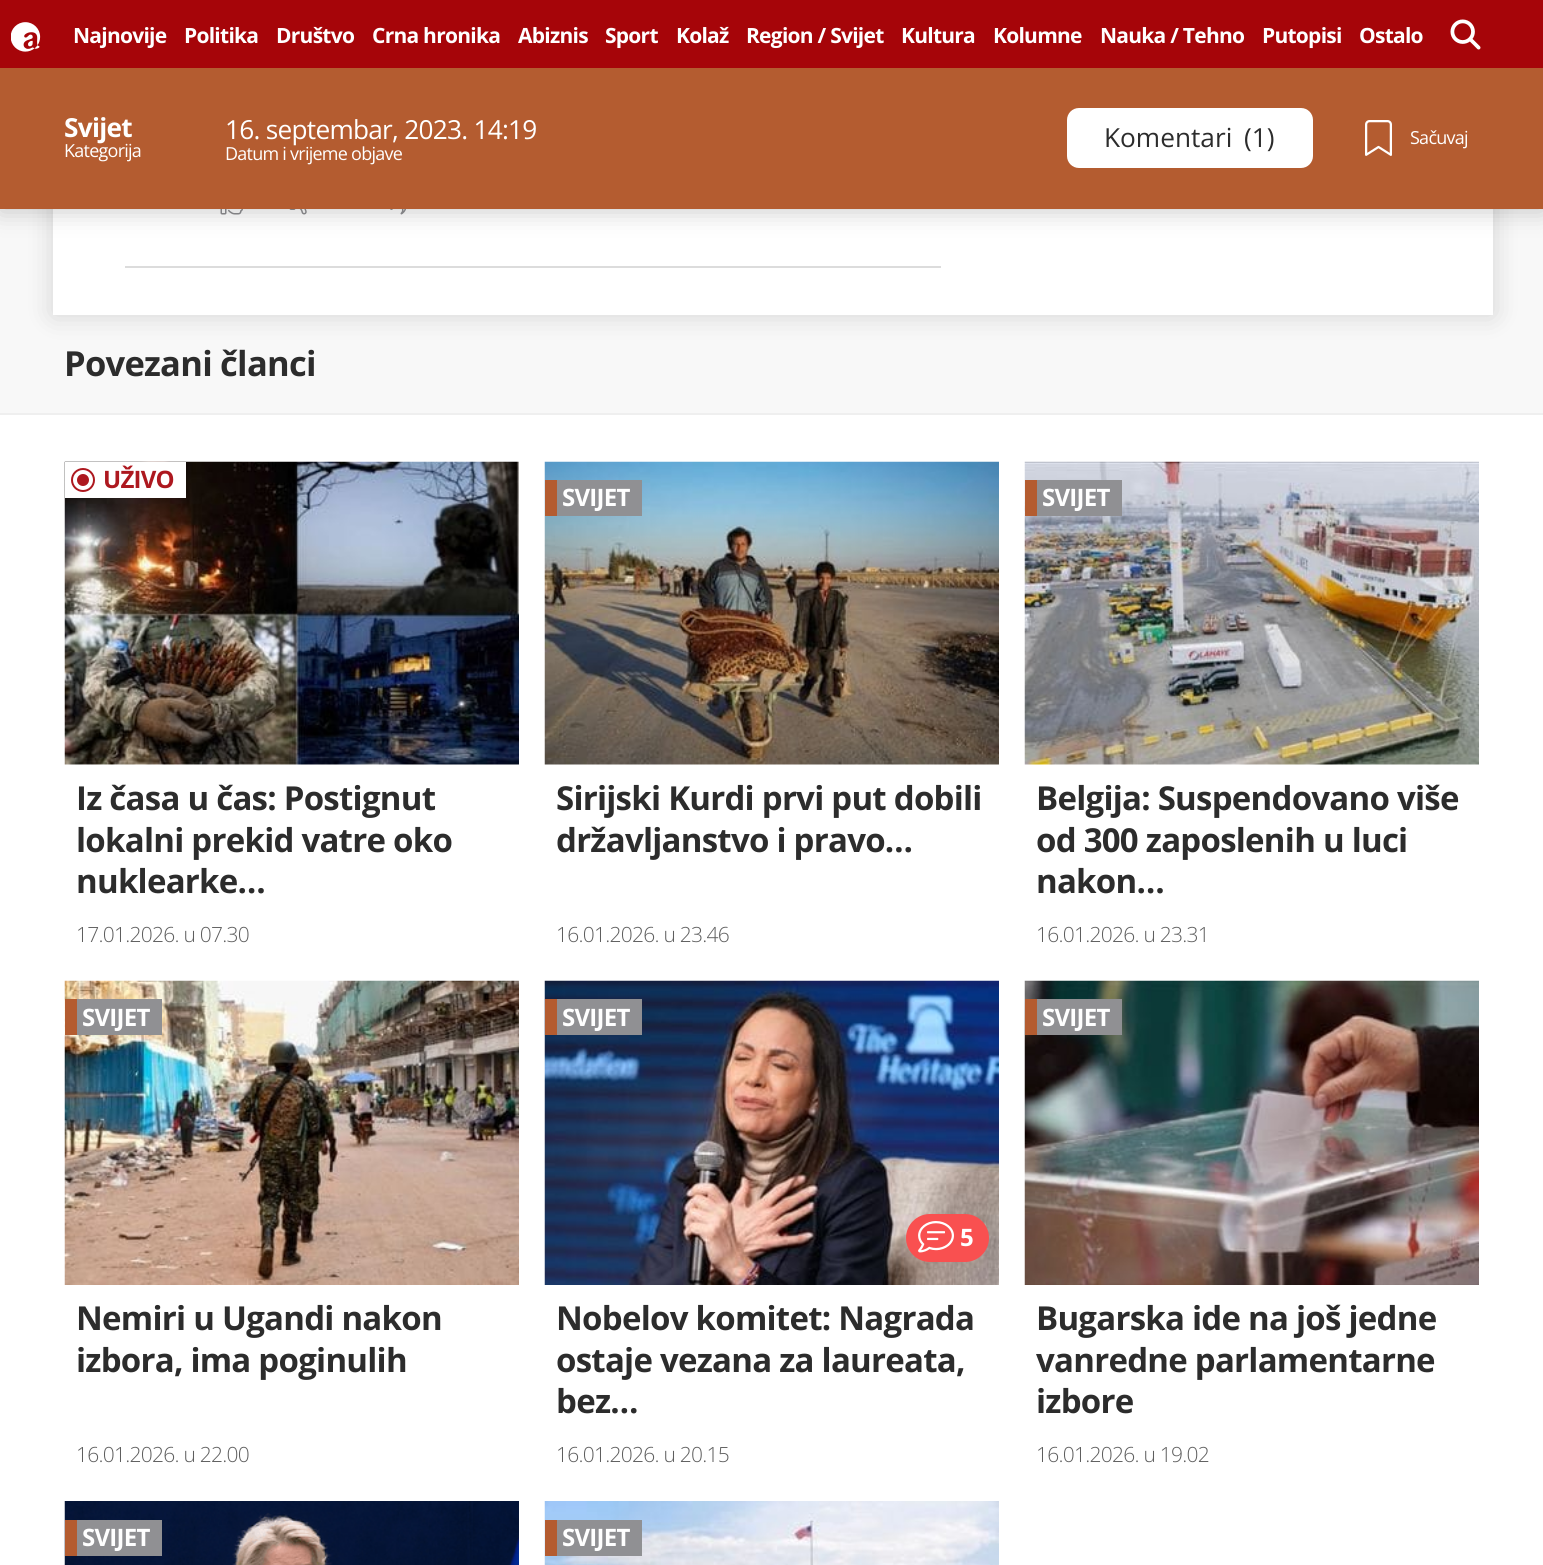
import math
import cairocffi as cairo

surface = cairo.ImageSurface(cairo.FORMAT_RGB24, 1543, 1565)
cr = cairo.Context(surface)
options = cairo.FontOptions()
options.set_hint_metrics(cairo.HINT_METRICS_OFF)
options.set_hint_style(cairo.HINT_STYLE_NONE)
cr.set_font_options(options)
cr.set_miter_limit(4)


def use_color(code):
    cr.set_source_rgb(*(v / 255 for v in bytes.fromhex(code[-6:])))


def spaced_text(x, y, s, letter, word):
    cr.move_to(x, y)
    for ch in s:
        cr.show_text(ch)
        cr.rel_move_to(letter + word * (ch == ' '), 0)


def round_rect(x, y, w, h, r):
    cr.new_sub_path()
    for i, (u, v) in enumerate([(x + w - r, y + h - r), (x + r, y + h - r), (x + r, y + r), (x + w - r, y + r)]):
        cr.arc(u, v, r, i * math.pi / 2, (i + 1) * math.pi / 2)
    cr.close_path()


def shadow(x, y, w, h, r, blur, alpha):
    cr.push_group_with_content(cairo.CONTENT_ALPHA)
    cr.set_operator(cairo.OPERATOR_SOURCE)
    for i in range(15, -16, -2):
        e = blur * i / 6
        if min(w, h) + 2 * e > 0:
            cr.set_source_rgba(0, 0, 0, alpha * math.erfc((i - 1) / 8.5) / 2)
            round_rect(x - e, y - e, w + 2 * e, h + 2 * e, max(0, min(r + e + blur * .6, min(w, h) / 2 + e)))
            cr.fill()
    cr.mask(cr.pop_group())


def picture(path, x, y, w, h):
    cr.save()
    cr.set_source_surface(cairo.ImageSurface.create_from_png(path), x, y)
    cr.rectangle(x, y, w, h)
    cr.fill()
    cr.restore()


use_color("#f8f8f8")
cr.paint()
use_color("#000000")
shadow(53, -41, 1440, 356, 0, 13.5, 0.15)
use_color("#ffffff")
cr.rectangle(53, 209, 1440, 106)
cr.fill()
picture("img3.png", 220, 209, 23, 6)
picture("img4.png", 289, 209, 18, 6)
picture("img5.png", 390, 209, 16, 6)
use_color("#000000")
shadow(0, 71, 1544, 141, 0, 12, 0.2)
use_color("#a60509")
cr.rectangle(0, 0, 1543, 68)
cr.fill()
picture("img1.png", 11, 22, 30, 30)
cr.select_font_face("Open Sans", cairo.FONT_SLANT_NORMAL, cairo.FONT_WEIGHT_BOLD)
cr.set_font_size(21)
use_color("#ffffff")
spaced_text(73, 43, "Najnovije", -0.75, 0)
spaced_text(184, 43, "Politika", -0.75, 0)
spaced_text(276, 43, "Društvo", -0.75, 0)
spaced_text(372, 43, "Crna hronika", -0.75, 0)
spaced_text(518, 43, "Abiznis", -0.75, 0)
spaced_text(605, 43, "Sport", -0.75, 0)
spaced_text(676, 43, "Kolaž", -0.75, 0)
spaced_text(746, 43, "Region / Svijet", -0.75, 0)
spaced_text(901, 43, "Kultura", -0.75, 0)
spaced_text(993, 43, "Kolumne", -0.75, 0)
spaced_text(1100, 43, "Nauka / Tehno", -0.75, 0)
spaced_text(1262, 43, "Putopisi", -0.75, 0)
spaced_text(1359, 43, "Ostalo", -0.75, 0)
picture("img2.png", 1450, 19, 31, 31)
use_color("#dcdcdc")
cr.rectangle(125, 266, 816, 2)
cr.fill()
use_color("#b45c30")
cr.rectangle(0, 68, 1543, 141)
cr.fill()
cr.set_font_size(26.25)
use_color("#ffffff")
spaced_text(64, 137, "Svijet", -0.75, 0)
cr.select_font_face("Open Sans")
cr.set_font_size(18)
spaced_text(64, 157, "Kategorija", -0.75, 0)
cr.set_font_size(26.25)
spaced_text(225, 139, "16. septembar, 2023. 14:19", -0.75, 0)
cr.set_font_size(18)
spaced_text(225, 160, "Datum i vrijeme objave", -0.75, 0)
round_rect(1068, 109, 244, 58, 11)
cr.fill_preserve()
cr.stroke()
cr.set_font_size(26.25)
use_color("#2c2c2c")
cr.move_to(1104, 147)
cr.show_text("Komentari")
cr.move_to(1244, 147)
cr.show_text("(1)")
picture("img6.png", 1365, 120, 27, 36)
cr.set_font_size(18)
use_color("#ffffff")
spaced_text(1410, 144, "Sačuvaj", -0.75, 0)
cr.select_font_face("Open Sans", cairo.FONT_SLANT_NORMAL, cairo.FONT_WEIGHT_BOLD)
cr.set_font_size(34.5)
use_color("#2c2c2c")
spaced_text(64, 376, "Povezani članci", -0.75, 0)
use_color("#ffffff")
cr.rectangle(0, 415, 1543, 1150)
cr.fill()
use_color("#efefef")
cr.rectangle(0, 413, 1543, 2)
cr.fill()
picture("img7.png", 64, 461, 455, 304)
use_color("#ffffff")
cr.rectangle(65, 462, 121, 36)
cr.fill()
cr.arc(83, 480, 11, 0, 2 * math.pi)
use_color("#ad181f")
cr.stroke()
cr.arc(83, 480, 6, 0, 2 * math.pi)
cr.fill()
cr.set_font_size(24)
spaced_text(103, 488, "UŽIVO", -0.75, 0)
cr.set_font_size(33)
use_color("#2c2c2c")
spaced_text(76, 810, "Iz časa u čas: Postignut", -0.75, 0)
spaced_text(76, 852, "lokalni prekid vatre oko", -0.75, 0)
spaced_text(76, 893, "nuklearke…", -0.75, 0)
cr.select_font_face("Open Sans Light")
cr.set_font_size(21)
use_color("#5e5e5e")
spaced_text(76, 942, "17.01.2026. u 07.30", -0.75, 0)
picture("img8.png", 544, 461, 455, 304)
use_color("#b45c30")
cr.rectangle(545, 480, 12, 36)
cr.fill()
use_color("#909093")
cr.rectangle(557, 480, 85, 36)
cr.fill()
cr.select_font_face("Open Sans", cairo.FONT_SLANT_NORMAL, cairo.FONT_WEIGHT_BOLD)
cr.set_font_size(24)
use_color("#ffffff")
spaced_text(562, 506, "SVIJET", -0.75, 0)
cr.set_font_size(33)
use_color("#2c2c2c")
spaced_text(556, 810, "Sirijski Kurdi prvi put dobili", -0.75, 0)
spaced_text(556, 852, "državljanstvo i pravo…", -0.75, 0)
cr.select_font_face("Open Sans Light")
cr.set_font_size(21)
use_color("#5e5e5e")
spaced_text(556, 942, "16.01.2026. u 23.46", -0.75, 0)
picture("img9.png", 1024, 461, 455, 304)
use_color("#b45c30")
cr.rectangle(1025, 480, 12, 36)
cr.fill()
use_color("#909093")
cr.rectangle(1037, 480, 85, 36)
cr.fill()
cr.select_font_face("Open Sans", cairo.FONT_SLANT_NORMAL, cairo.FONT_WEIGHT_BOLD)
cr.set_font_size(24)
use_color("#ffffff")
spaced_text(1042, 506, "SVIJET", -0.75, 0)
cr.set_font_size(33)
use_color("#2c2c2c")
spaced_text(1036, 810, "Belgija: Suspendovano više", -0.75, 0)
spaced_text(1036, 852, "od 300 zaposlenih u luci", -0.75, 0)
spaced_text(1036, 893, "nakon…", -0.75, 0)
cr.select_font_face("Open Sans Light")
cr.set_font_size(21)
use_color("#5e5e5e")
spaced_text(1036, 942, "16.01.2026. u 23.31", -0.75, 0)
picture("img10.png", 64, 980, 455, 305)
use_color("#b45c30")
cr.rectangle(65, 999, 12, 36)
cr.fill()
use_color("#909093")
cr.rectangle(77, 999, 85, 36)
cr.fill()
cr.select_font_face("Open Sans", cairo.FONT_SLANT_NORMAL, cairo.FONT_WEIGHT_BOLD)
cr.set_font_size(24)
use_color("#ffffff")
spaced_text(82, 1026, "SVIJET", -0.75, 0)
cr.set_font_size(33)
use_color("#2c2c2c")
spaced_text(76, 1330, "Nemiri u Ugandi nakon", -0.75, 0)
spaced_text(76, 1372, "izbora, ima poginulih", -0.75, 0)
cr.select_font_face("Open Sans Light")
cr.set_font_size(21)
use_color("#5e5e5e")
spaced_text(76, 1462, "16.01.2026. u 22.00", -0.75, 0)
picture("img11.png", 544, 980, 455, 305)
use_color("#b45c30")
cr.rectangle(545, 999, 12, 36)
cr.fill()
use_color("#909093")
cr.rectangle(557, 999, 85, 36)
cr.fill()
cr.select_font_face("Open Sans", cairo.FONT_SLANT_NORMAL, cairo.FONT_WEIGHT_BOLD)
cr.set_font_size(24)
use_color("#ffffff")
spaced_text(562, 1026, "SVIJET", -0.75, 0)
use_color("#f95050")
round_rect(906, 1214, 83, 48, 24)
cr.fill()
picture("img12.png", 918, 1221, 36, 32)
use_color("#ffffff")
spaced_text(960, 1246, "5", -0.75, 0)
cr.set_font_size(33)
use_color("#2c2c2c")
spaced_text(556, 1330, "Nobelov komitet: Nagrada", -0.75, 0)
spaced_text(556, 1372, "ostaje vezana za laureata,", -0.75, 0)
spaced_text(556, 1413, "bez…", -0.75, 0)
cr.select_font_face("Open Sans Light")
cr.set_font_size(21)
use_color("#5e5e5e")
spaced_text(556, 1462, "16.01.2026. u 20.15", -0.75, 0)
picture("img13.png", 1024, 980, 455, 305)
use_color("#b45c30")
cr.rectangle(1025, 999, 12, 36)
cr.fill()
use_color("#909093")
cr.rectangle(1037, 999, 85, 36)
cr.fill()
cr.select_font_face("Open Sans", cairo.FONT_SLANT_NORMAL, cairo.FONT_WEIGHT_BOLD)
cr.set_font_size(24)
use_color("#ffffff")
spaced_text(1042, 1026, "SVIJET", -0.75, 0)
cr.set_font_size(33)
use_color("#2c2c2c")
spaced_text(1036, 1330, "Bugarska ide na još jedne", -0.75, 0)
spaced_text(1036, 1372, "vanredne parlamentarne", -0.75, 0)
spaced_text(1036, 1413, "izbore", -0.75, 0)
cr.select_font_face("Open Sans Light")
cr.set_font_size(21)
use_color("#5e5e5e")
spaced_text(1036, 1462, "16.01.2026. u 19.02", -0.75, 0)
picture("img14.png", 64, 1501, 455, 64)
use_color("#b45c30")
cr.rectangle(65, 1520, 12, 36)
cr.fill()
use_color("#909093")
cr.rectangle(77, 1520, 85, 36)
cr.fill()
cr.select_font_face("Open Sans", cairo.FONT_SLANT_NORMAL, cairo.FONT_WEIGHT_BOLD)
cr.set_font_size(24)
use_color("#ffffff")
spaced_text(82, 1546, "SVIJET", -0.75, 0)
picture("img15.png", 544, 1501, 455, 64)
use_color("#b45c30")
cr.rectangle(545, 1520, 12, 36)
cr.fill()
use_color("#909093")
cr.rectangle(557, 1520, 85, 36)
cr.fill()
use_color("#ffffff")
spaced_text(562, 1546, "SVIJET", -0.75, 0)
surface.write_to_png("result.png")
